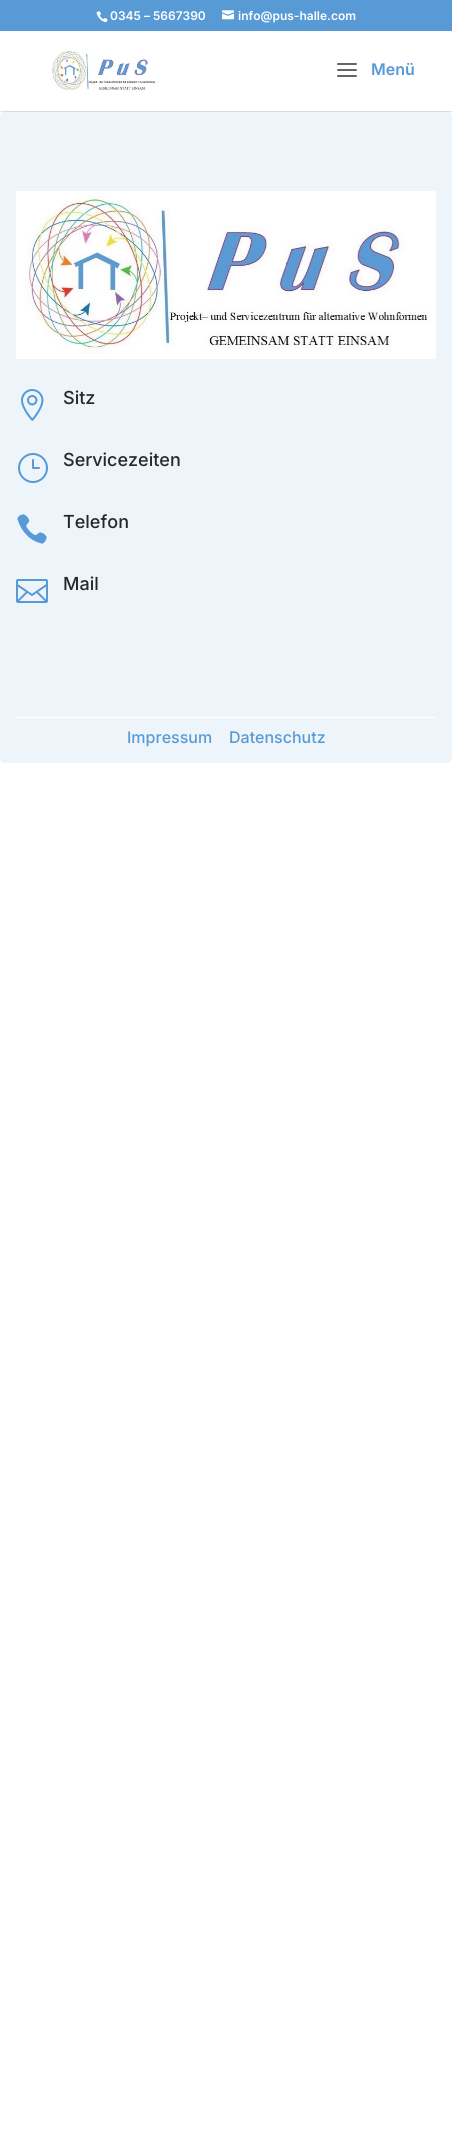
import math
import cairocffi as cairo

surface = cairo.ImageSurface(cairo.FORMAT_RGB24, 452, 2155)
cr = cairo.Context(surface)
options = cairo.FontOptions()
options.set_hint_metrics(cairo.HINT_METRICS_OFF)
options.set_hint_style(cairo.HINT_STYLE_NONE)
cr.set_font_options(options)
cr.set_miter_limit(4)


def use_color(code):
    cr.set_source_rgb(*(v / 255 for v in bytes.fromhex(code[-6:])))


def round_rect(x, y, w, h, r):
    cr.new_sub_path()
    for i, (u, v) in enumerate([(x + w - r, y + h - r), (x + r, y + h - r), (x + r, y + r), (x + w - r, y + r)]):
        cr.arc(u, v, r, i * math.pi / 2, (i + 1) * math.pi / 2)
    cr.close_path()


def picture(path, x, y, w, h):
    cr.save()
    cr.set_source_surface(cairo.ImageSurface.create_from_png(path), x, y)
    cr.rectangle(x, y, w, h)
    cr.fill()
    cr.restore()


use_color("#ffffff")
cr.paint()
use_color("#589ad6")
cr.rectangle(0, 0, 452, 31)
cr.fill()
picture("img1.png", 96, 11, 12, 12)
cr.select_font_face("Inter SemiBold")
cr.set_font_size(12)
use_color("#ffffff")
cr.move_to(110, 20)
cr.show_text("0345 – 5667390")
picture("img2.png", 222, 10, 12, 10)
cr.move_to(238, 20)
cr.show_text("info@pus-halle.com")
use_color("#edf5fb")
round_rect(0, 111, 452, 652, 5)
cr.fill()
cr.set_source_rgba(0, 0, 0, 0.1)
cr.rectangle(0, 111, 452, 1)
cr.fill()
picture("img3.png", 52, 50, 103, 41)
picture("img4.png", 337, 63, 20, 14)
cr.set_font_size(16)
use_color("#589ad6")
cr.move_to(371, 75)
cr.show_text("Menü")
picture("img5.png", 16, 191, 420, 168)
picture("img6.png", 21, 389, 23, 32)
cr.select_font_face("Inter Medium")
cr.set_font_size(18)
use_color("#282828")
cr.move_to(63, 404)
cr.show_text("Sitz")
picture("img7.png", 18, 453, 30, 30)
cr.move_to(63, 466)
cr.show_text("Servicezeiten")
picture("img8.png", 17, 514, 30, 30)
cr.move_to(63, 528)
cr.show_text("Telefon")
picture("img9.png", 16, 579, 32, 24)
cr.move_to(63, 590)
cr.show_text("Mail")
use_color("#ffffff")
cr.rectangle(16, 717, 420, 1)
cr.fill()
cr.set_font_size(16)
use_color("#589ad6")
cr.move_to(127, 743)
cr.show_text("Impressum")
cr.move_to(229, 743)
cr.show_text("Datenschutz")
surface.write_to_png("result.png")
